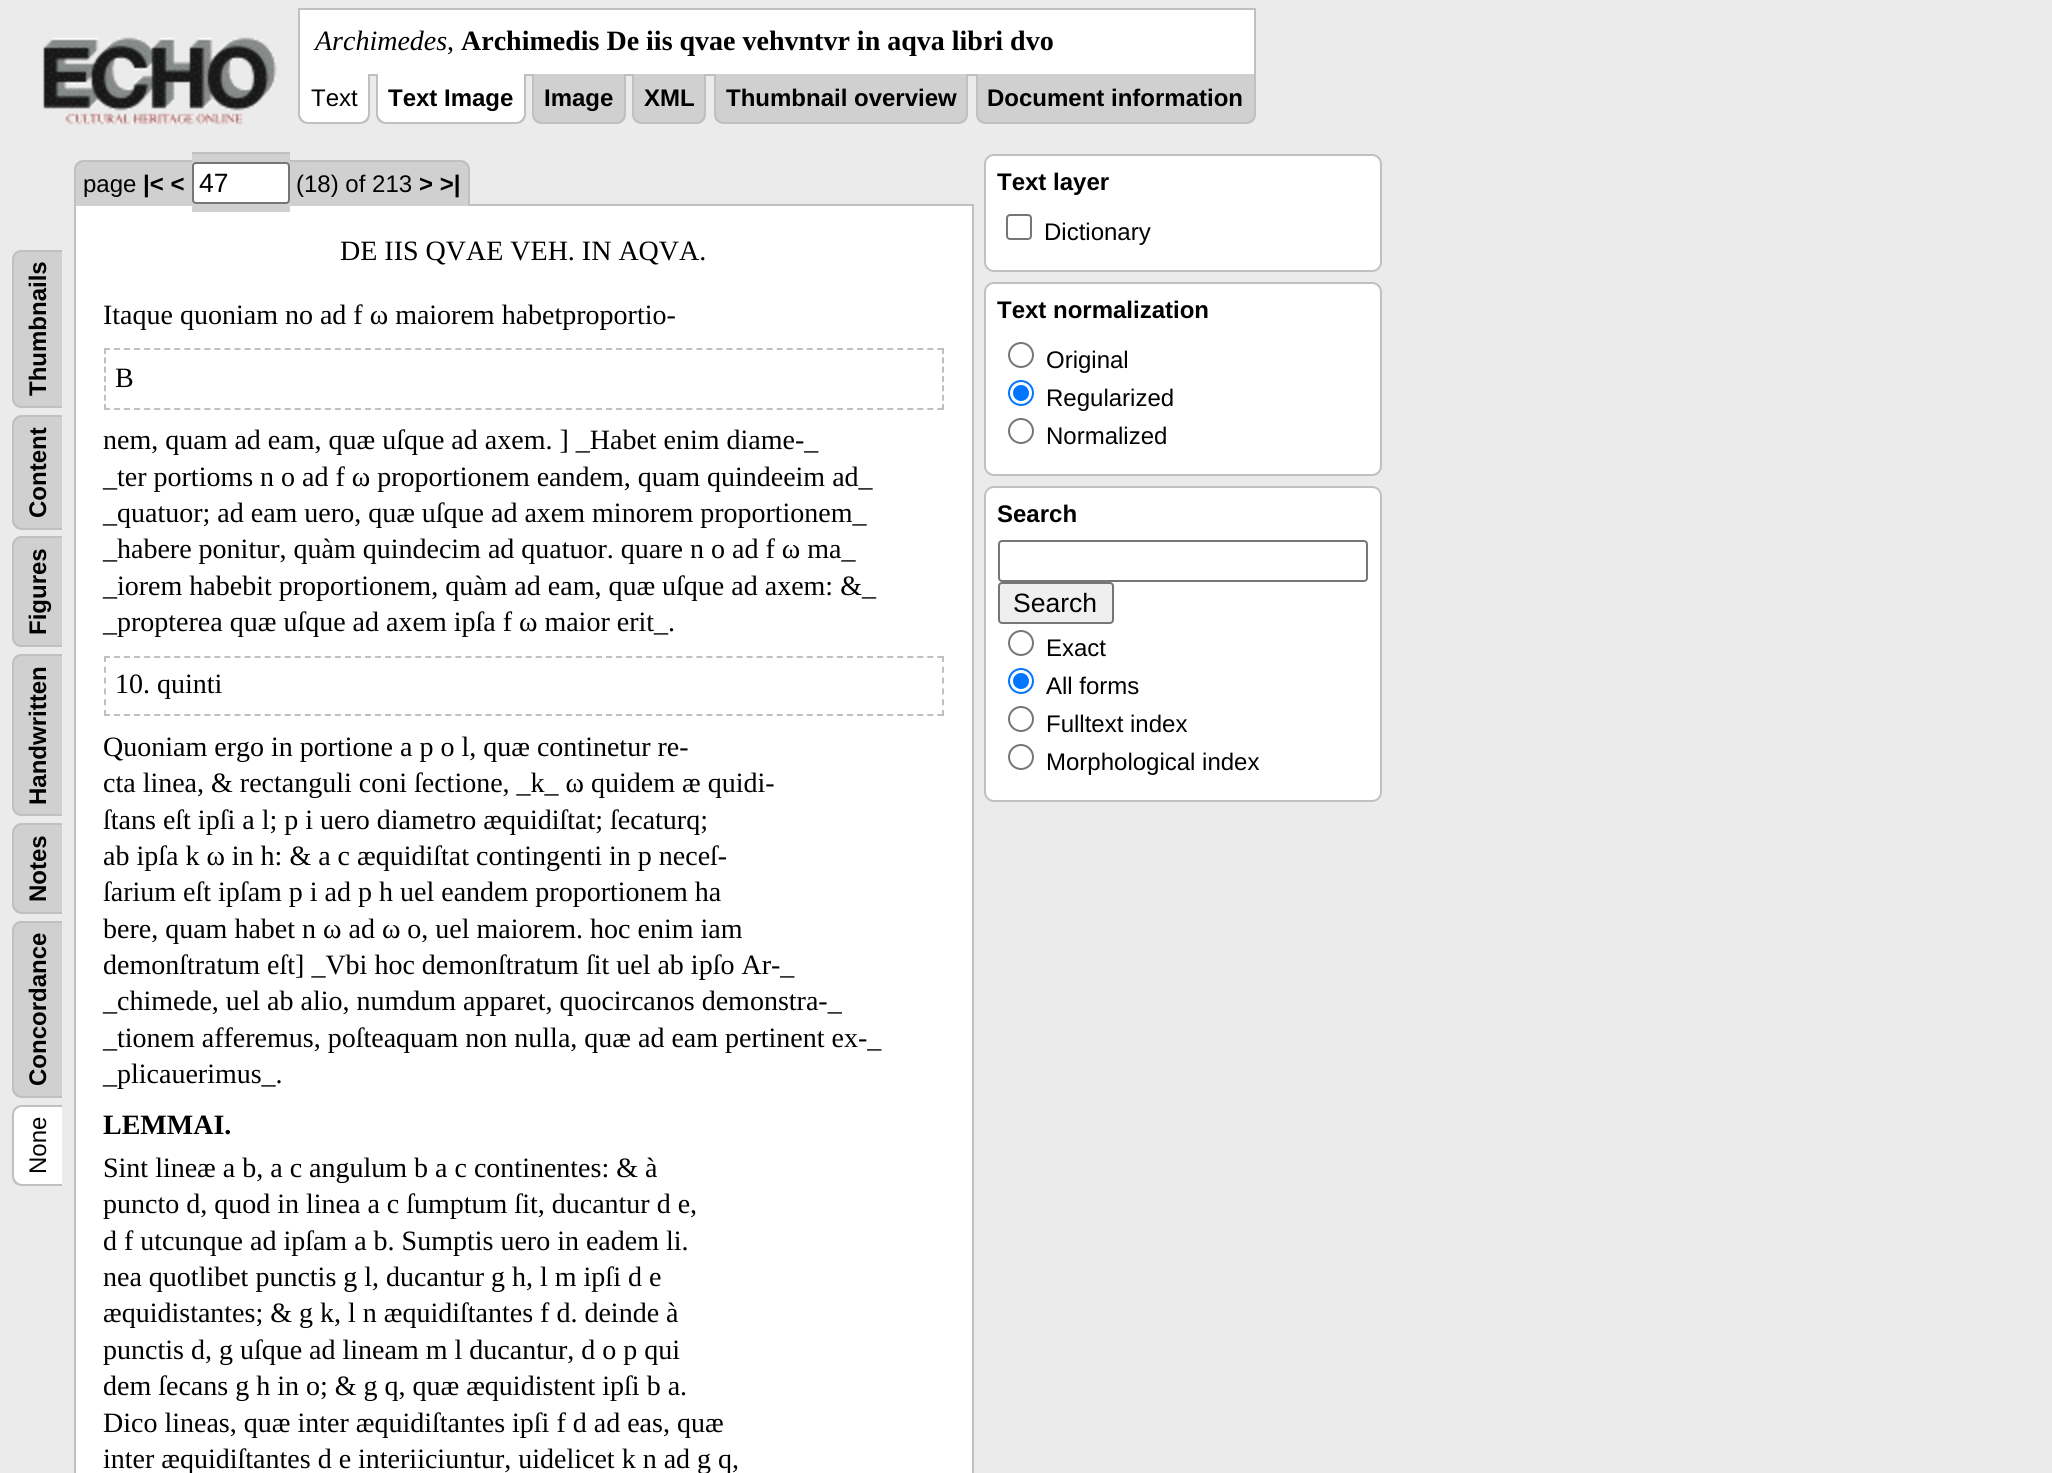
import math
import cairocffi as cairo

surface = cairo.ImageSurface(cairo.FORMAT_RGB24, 2052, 1473)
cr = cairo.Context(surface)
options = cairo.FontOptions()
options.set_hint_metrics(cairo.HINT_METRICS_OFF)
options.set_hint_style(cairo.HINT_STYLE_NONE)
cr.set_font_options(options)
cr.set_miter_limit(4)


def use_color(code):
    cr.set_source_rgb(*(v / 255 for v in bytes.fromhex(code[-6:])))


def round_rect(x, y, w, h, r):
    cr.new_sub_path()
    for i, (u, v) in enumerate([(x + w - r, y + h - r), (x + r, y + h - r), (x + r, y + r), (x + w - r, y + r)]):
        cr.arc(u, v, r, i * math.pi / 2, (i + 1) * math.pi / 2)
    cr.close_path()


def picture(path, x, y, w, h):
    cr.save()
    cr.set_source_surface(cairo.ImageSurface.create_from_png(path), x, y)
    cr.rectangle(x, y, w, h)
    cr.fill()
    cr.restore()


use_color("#ebebeb")
cr.paint()
picture("img1.png", 43, 37, 234, 88)
use_color("#ffffff")
cr.rectangle(299, 9, 956, 66)
cr.fill_preserve()
use_color("#c0c0c0")
cr.stroke()
cr.select_font_face("Liberation Serif", cairo.FONT_SLANT_ITALIC)
cr.set_font_size(28)
use_color("#000000")
cr.move_to(315, 50)
cr.show_text("Archimedes")
cr.select_font_face("Liberation Serif")
cr.move_to(447, 50)
cr.show_text(",")
cr.select_font_face("Liberation Serif", cairo.FONT_SLANT_NORMAL, cairo.FONT_WEIGHT_BOLD)
cr.move_to(461, 50)
cr.show_text("Archimedis De iis qvae vehvntvr in aqva libri dvo")
use_color("#ffffff")
cr.new_path()
cr.move_to(298, 74)
cr.line_to(370, 74)
cr.line_to(370, 114)
cr.curve_to(370, 119.5, 365.5, 124, 360, 124)
cr.line_to(308, 124)
cr.curve_to(302.5, 124, 298, 119.5, 298, 114)
cr.close_path()
cr.fill()
use_color("#c0c0c0")
cr.set_fill_rule(cairo.FILL_RULE_EVEN_ODD)
cr.new_path()
cr.move_to(298, 74)
cr.line_to(370, 74)
cr.line_to(370, 114)
cr.curve_to(370, 120, 366, 124, 360, 124)
cr.line_to(308, 124)
cr.curve_to(302, 124, 298, 120, 298, 114)
cr.close_path()
cr.move_to(300, 74)
cr.line_to(368, 74)
cr.line_to(368, 114)
cr.curve_to(368, 118, 364, 122, 360, 122)
cr.line_to(308, 122)
cr.curve_to(304, 122, 300, 118, 300, 114)
cr.close_path()
cr.fill()
cr.select_font_face("Liberation Sans")
cr.set_font_size(24)
use_color("#000000")
cr.move_to(311, 106)
cr.show_text("Text")
use_color("#ffffff")
cr.new_path()
cr.move_to(376, 74)
cr.line_to(526, 74)
cr.line_to(526, 114)
cr.curve_to(526, 119.5, 521.5, 124, 516, 124)
cr.line_to(386, 124)
cr.curve_to(380.5, 124, 376, 119.5, 376, 114)
cr.close_path()
cr.fill()
use_color("#c0c0c0")
cr.new_path()
cr.move_to(376, 74)
cr.line_to(526, 74)
cr.line_to(526, 114)
cr.curve_to(526, 120, 522, 124, 516, 124)
cr.line_to(386, 124)
cr.curve_to(380, 124, 376, 120, 376, 114)
cr.close_path()
cr.move_to(378, 74)
cr.line_to(524, 74)
cr.line_to(524, 114)
cr.curve_to(524, 118, 520, 122, 516, 122)
cr.line_to(386, 122)
cr.curve_to(382, 122, 378, 118, 378, 114)
cr.close_path()
cr.fill()
cr.select_font_face("Liberation Sans", cairo.FONT_SLANT_NORMAL, cairo.FONT_WEIGHT_BOLD)
use_color("#000000")
cr.move_to(388, 106)
cr.show_text("Text Image")
use_color("#d0d0d0")
cr.new_path()
cr.move_to(532, 74)
cr.line_to(626, 74)
cr.line_to(626, 114)
cr.curve_to(626, 119.5, 621.5, 124, 616, 124)
cr.line_to(542, 124)
cr.curve_to(536.5, 124, 532, 119.5, 532, 114)
cr.close_path()
cr.fill()
use_color("#c0c0c0")
cr.new_path()
cr.move_to(532, 74)
cr.line_to(626, 74)
cr.line_to(626, 114)
cr.curve_to(626, 120, 622, 124, 616, 124)
cr.line_to(542, 124)
cr.curve_to(536, 124, 532, 120, 532, 114)
cr.close_path()
cr.move_to(534, 74)
cr.line_to(624, 74)
cr.line_to(624, 114)
cr.curve_to(624, 118, 620, 122, 616, 122)
cr.line_to(542, 122)
cr.curve_to(538, 122, 534, 118, 534, 114)
cr.close_path()
cr.fill()
use_color("#000000")
cr.move_to(544, 106)
cr.show_text("Image")
use_color("#d0d0d0")
cr.new_path()
cr.move_to(632, 74)
cr.line_to(706, 74)
cr.line_to(706, 114)
cr.curve_to(706, 119.5, 701.5, 124, 696, 124)
cr.line_to(642, 124)
cr.curve_to(636.5, 124, 632, 119.5, 632, 114)
cr.close_path()
cr.fill()
use_color("#c0c0c0")
cr.new_path()
cr.move_to(632, 74)
cr.line_to(706, 74)
cr.line_to(706, 114)
cr.curve_to(706, 120, 702, 124, 696, 124)
cr.line_to(642, 124)
cr.curve_to(636, 124, 632, 120, 632, 114)
cr.close_path()
cr.move_to(634, 74)
cr.line_to(704, 74)
cr.line_to(704, 114)
cr.curve_to(704, 118, 700, 122, 696, 122)
cr.line_to(642, 122)
cr.curve_to(638, 122, 634, 118, 634, 114)
cr.close_path()
cr.fill()
use_color("#000000")
cr.move_to(644, 106)
cr.show_text("XML")
use_color("#d0d0d0")
cr.new_path()
cr.move_to(714, 74)
cr.line_to(968, 74)
cr.line_to(968, 114)
cr.curve_to(968, 119.5, 963.5, 124, 958, 124)
cr.line_to(724, 124)
cr.curve_to(718.5, 124, 714, 119.5, 714, 114)
cr.close_path()
cr.fill()
use_color("#c0c0c0")
cr.new_path()
cr.move_to(714, 74)
cr.line_to(968, 74)
cr.line_to(968, 114)
cr.curve_to(968, 120, 964, 124, 958, 124)
cr.line_to(724, 124)
cr.curve_to(718, 124, 714, 120, 714, 114)
cr.close_path()
cr.move_to(716, 74)
cr.line_to(966, 74)
cr.line_to(966, 114)
cr.curve_to(966, 118, 962, 122, 958, 122)
cr.line_to(724, 122)
cr.curve_to(720, 122, 716, 118, 716, 114)
cr.close_path()
cr.fill()
use_color("#000000")
cr.move_to(726, 106)
cr.show_text("Thumbnail overview")
use_color("#d0d0d0")
cr.new_path()
cr.move_to(976, 74)
cr.line_to(1256, 74)
cr.line_to(1256, 114)
cr.curve_to(1256, 119.5, 1251.5, 124, 1246, 124)
cr.line_to(986, 124)
cr.curve_to(980.5, 124, 976, 119.5, 976, 114)
cr.close_path()
cr.fill()
use_color("#c0c0c0")
cr.new_path()
cr.move_to(976, 74)
cr.line_to(1256, 74)
cr.line_to(1256, 114)
cr.curve_to(1256, 120, 1252, 124, 1246, 124)
cr.line_to(986, 124)
cr.curve_to(980, 124, 976, 120, 976, 114)
cr.close_path()
cr.move_to(978, 74)
cr.line_to(1254, 74)
cr.line_to(1254, 114)
cr.curve_to(1254, 118, 1250, 122, 1246, 122)
cr.line_to(986, 122)
cr.curve_to(982, 122, 978, 118, 978, 114)
cr.close_path()
cr.fill()
use_color("#000000")
cr.move_to(987, 106)
cr.show_text("Document information")
use_color("#d0d0d0")
cr.set_fill_rule(cairo.FILL_RULE_WINDING)
cr.new_path()
cr.move_to(12, 398)
cr.line_to(12, 260)
cr.curve_to(12, 254, 16, 250, 22, 250)
cr.line_to(62, 250)
cr.line_to(62, 408)
cr.line_to(22, 408)
cr.curve_to(16, 408, 12, 404, 12, 398)
cr.close_path()
cr.fill()
use_color("#c0c0c0")
cr.set_fill_rule(cairo.FILL_RULE_EVEN_ODD)
cr.new_path()
cr.move_to(12, 398)
cr.line_to(12, 260)
cr.curve_to(12, 254, 16, 250, 22, 250)
cr.line_to(62, 250)
cr.line_to(62, 408)
cr.line_to(22, 408)
cr.curve_to(16, 408, 12, 404, 12, 398)
cr.close_path()
cr.move_to(14, 398)
cr.line_to(14, 260)
cr.curve_to(14, 255, 18, 252, 22, 252)
cr.line_to(62, 252)
cr.line_to(62, 406)
cr.line_to(22, 406)
cr.curve_to(18, 406, 14, 403, 14, 398)
cr.close_path()
cr.fill()
use_color("#000000")
cr.save()
cr.translate(46, 396)
cr.rotate(-90 * math.pi / 180)
cr.move_to(0, 0)
cr.show_text("Thumbnails")
cr.restore()
use_color("#d0d0d0")
cr.set_fill_rule(cairo.FILL_RULE_WINDING)
cr.new_path()
cr.move_to(12, 520)
cr.line_to(12, 425)
cr.curve_to(12, 420, 16, 415, 22, 415)
cr.line_to(62, 415)
cr.line_to(62, 530)
cr.line_to(22, 530)
cr.curve_to(16, 530, 12, 525, 12, 520)
cr.close_path()
cr.fill()
use_color("#c0c0c0")
cr.set_fill_rule(cairo.FILL_RULE_EVEN_ODD)
cr.new_path()
cr.move_to(12, 520)
cr.line_to(12, 425)
cr.curve_to(12, 420, 16, 415, 22, 415)
cr.line_to(62, 415)
cr.line_to(62, 530)
cr.line_to(22, 530)
cr.curve_to(16, 530, 12, 525, 12, 520)
cr.close_path()
cr.move_to(14, 520)
cr.line_to(14, 425)
cr.curve_to(14, 421, 18, 417, 22, 417)
cr.line_to(62, 417)
cr.line_to(62, 528)
cr.line_to(22, 528)
cr.curve_to(18, 528, 14, 524, 14, 520)
cr.close_path()
cr.fill()
use_color("#000000")
cr.save()
cr.translate(46, 518)
cr.rotate(-90 * math.pi / 180)
cr.move_to(0, 0)
cr.show_text("Content")
cr.restore()
use_color("#d0d0d0")
cr.set_fill_rule(cairo.FILL_RULE_WINDING)
cr.new_path()
cr.move_to(12, 637)
cr.line_to(12, 546)
cr.curve_to(12, 541, 16, 536, 22, 536)
cr.line_to(62, 536)
cr.line_to(62, 647)
cr.line_to(22, 647)
cr.curve_to(16, 647, 12, 643, 12, 637)
cr.close_path()
cr.fill()
use_color("#c0c0c0")
cr.set_fill_rule(cairo.FILL_RULE_EVEN_ODD)
cr.new_path()
cr.move_to(12, 637)
cr.line_to(12, 546)
cr.curve_to(12, 541, 16, 536, 22, 536)
cr.line_to(62, 536)
cr.line_to(62, 647)
cr.line_to(22, 647)
cr.curve_to(16, 647, 12, 643, 12, 637)
cr.close_path()
cr.move_to(14, 637)
cr.line_to(14, 546)
cr.curve_to(14, 542, 18, 538, 22, 538)
cr.line_to(62, 538)
cr.line_to(62, 645)
cr.line_to(22, 645)
cr.curve_to(18, 645, 14, 642, 14, 637)
cr.close_path()
cr.fill()
use_color("#000000")
cr.save()
cr.translate(46, 635)
cr.rotate(-90 * math.pi / 180)
cr.move_to(0, 0)
cr.show_text("Figures")
cr.restore()
use_color("#d0d0d0")
cr.set_fill_rule(cairo.FILL_RULE_WINDING)
cr.new_path()
cr.move_to(12, 806)
cr.line_to(12, 664)
cr.curve_to(12, 658, 16, 654, 22, 654)
cr.line_to(62, 654)
cr.line_to(62, 816)
cr.line_to(22, 816)
cr.curve_to(16, 816, 12, 812, 12, 806)
cr.close_path()
cr.fill()
use_color("#c0c0c0")
cr.set_fill_rule(cairo.FILL_RULE_EVEN_ODD)
cr.new_path()
cr.move_to(12, 806)
cr.line_to(12, 664)
cr.curve_to(12, 658, 16, 654, 22, 654)
cr.line_to(62, 654)
cr.line_to(62, 816)
cr.line_to(22, 816)
cr.curve_to(16, 816, 12, 812, 12, 806)
cr.close_path()
cr.move_to(14, 806)
cr.line_to(14, 664)
cr.curve_to(14, 659, 18, 656, 22, 656)
cr.line_to(62, 656)
cr.line_to(62, 814)
cr.line_to(22, 814)
cr.curve_to(18, 814, 14, 811, 14, 806)
cr.close_path()
cr.fill()
use_color("#000000")
cr.save()
cr.translate(46, 805)
cr.rotate(-90 * math.pi / 180)
cr.move_to(0, 0)
cr.show_text("Handwritten")
cr.restore()
use_color("#d0d0d0")
cr.set_fill_rule(cairo.FILL_RULE_WINDING)
cr.new_path()
cr.move_to(12, 904)
cr.line_to(12, 833)
cr.curve_to(12, 828, 16, 823, 22, 823)
cr.line_to(62, 823)
cr.line_to(62, 914)
cr.line_to(22, 914)
cr.curve_to(16, 914, 12, 909, 12, 904)
cr.close_path()
cr.fill()
use_color("#c0c0c0")
cr.set_fill_rule(cairo.FILL_RULE_EVEN_ODD)
cr.new_path()
cr.move_to(12, 904)
cr.line_to(12, 833)
cr.curve_to(12, 828, 16, 823, 22, 823)
cr.line_to(62, 823)
cr.line_to(62, 914)
cr.line_to(22, 914)
cr.curve_to(16, 914, 12, 909, 12, 904)
cr.close_path()
cr.move_to(14, 904)
cr.line_to(14, 833)
cr.curve_to(14, 829, 18, 825, 22, 825)
cr.line_to(62, 825)
cr.line_to(62, 912)
cr.line_to(22, 912)
cr.curve_to(18, 912, 14, 908, 14, 904)
cr.close_path()
cr.fill()
use_color("#000000")
cr.save()
cr.translate(46, 902)
cr.rotate(-90 * math.pi / 180)
cr.move_to(0, 0)
cr.show_text("Notes")
cr.restore()
use_color("#d0d0d0")
cr.set_fill_rule(cairo.FILL_RULE_WINDING)
cr.new_path()
cr.move_to(12, 1088)
cr.line_to(12, 931)
cr.curve_to(12, 925, 16, 921, 22, 921)
cr.line_to(62, 921)
cr.line_to(62, 1098)
cr.line_to(22, 1098)
cr.curve_to(16, 1098, 12, 1093, 12, 1088)
cr.close_path()
cr.fill()
use_color("#c0c0c0")
cr.set_fill_rule(cairo.FILL_RULE_EVEN_ODD)
cr.new_path()
cr.move_to(12, 1088)
cr.line_to(12, 931)
cr.curve_to(12, 925, 16, 921, 22, 921)
cr.line_to(62, 921)
cr.line_to(62, 1098)
cr.line_to(22, 1098)
cr.curve_to(16, 1098, 12, 1093, 12, 1088)
cr.close_path()
cr.move_to(14, 1088)
cr.line_to(14, 931)
cr.curve_to(14, 926, 18, 923, 22, 923)
cr.line_to(62, 923)
cr.line_to(62, 1096)
cr.line_to(22, 1096)
cr.curve_to(18, 1096, 14, 1092, 14, 1088)
cr.close_path()
cr.fill()
use_color("#000000")
cr.save()
cr.translate(46, 1086)
cr.rotate(-90 * math.pi / 180)
cr.move_to(0, 0)
cr.show_text("Concordance")
cr.restore()
use_color("#ffffff")
cr.set_fill_rule(cairo.FILL_RULE_WINDING)
cr.new_path()
cr.move_to(12, 1176)
cr.line_to(12, 1115)
cr.curve_to(12, 1109, 16, 1105, 22, 1105)
cr.line_to(62, 1105)
cr.line_to(62, 1186)
cr.line_to(22, 1186)
cr.curve_to(16, 1186, 12, 1182, 12, 1176)
cr.close_path()
cr.fill()
use_color("#c0c0c0")
cr.set_fill_rule(cairo.FILL_RULE_EVEN_ODD)
cr.new_path()
cr.move_to(12, 1176)
cr.line_to(12, 1115)
cr.curve_to(12, 1109, 16, 1105, 22, 1105)
cr.line_to(62, 1105)
cr.line_to(62, 1186)
cr.line_to(22, 1186)
cr.curve_to(16, 1186, 12, 1182, 12, 1176)
cr.close_path()
cr.move_to(14, 1176)
cr.line_to(14, 1115)
cr.curve_to(14, 1110, 18, 1107, 22, 1107)
cr.line_to(62, 1107)
cr.line_to(62, 1184)
cr.line_to(22, 1184)
cr.curve_to(18, 1184, 14, 1180, 14, 1176)
cr.close_path()
cr.fill()
cr.select_font_face("Liberation Sans")
use_color("#000000")
cr.save()
cr.translate(46, 1174)
cr.rotate(-90 * math.pi / 180)
cr.move_to(0, 0)
cr.show_text("None")
cr.restore()
use_color("#ffffff")
cr.rectangle(75, 205, 898, 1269)
cr.fill_preserve()
use_color("#c0c0c0")
cr.stroke()
use_color("#d0d0d0")
cr.new_path()
cr.move_to(84, 160)
cr.line_to(144, 160)
cr.line_to(144, 206)
cr.line_to(74, 206)
cr.line_to(74, 170)
cr.curve_to(74, 164.5, 78.5, 160, 84, 160)
cr.close_path()
cr.fill()
use_color("#c0c0c0")
cr.new_path()
cr.move_to(84, 160)
cr.line_to(144, 160)
cr.line_to(144, 206)
cr.line_to(74, 206)
cr.line_to(74, 170)
cr.curve_to(74, 164, 78, 160, 84, 160)
cr.close_path()
cr.move_to(84, 162)
cr.line_to(144, 162)
cr.line_to(144, 206)
cr.line_to(76, 206)
cr.line_to(76, 170)
cr.curve_to(76, 166, 80, 162, 84, 162)
cr.close_path()
cr.fill()
use_color("#d0d0d0")
cr.rectangle(144, 162, 20, 44)
cr.fill()
use_color("#c0c0c0")
cr.rectangle(144, 160, 20, 2)
cr.fill()
use_color("#d0d0d0")
cr.rectangle(164, 160, 6, 46)
cr.fill()
use_color("#c0c0c0")
cr.rectangle(164, 160, 20, 2)
cr.fill()
use_color("#d0d0d0")
cr.rectangle(170, 162, 14, 44)
cr.fill()
cr.rectangle(184, 160, 8, 46)
cr.fill()
use_color("#c0c0c0")
cr.rectangle(184, 160, 8, 2)
cr.fill()
use_color("#d0d0d0")
cr.rectangle(192, 154, 98, 58)
cr.fill()
use_color("#c0c0c0")
cr.rectangle(192, 152, 98, 2)
cr.fill()
use_color("#d0d0d0")
cr.rectangle(290, 160, 6, 46)
cr.fill()
use_color("#c0c0c0")
cr.rectangle(290, 160, 142, 2)
cr.fill()
use_color("#d0d0d0")
cr.rectangle(296, 162, 136, 44)
cr.fill()
cr.rectangle(432, 160, 8, 46)
cr.fill()
use_color("#c0c0c0")
cr.rectangle(432, 160, 8, 2)
cr.fill()
use_color("#d0d0d0")
cr.new_path()
cr.move_to(440, 160)
cr.line_to(460, 160)
cr.curve_to(465.5, 160, 470, 164.5, 470, 170)
cr.line_to(470, 206)
cr.line_to(440, 206)
cr.close_path()
cr.fill()
use_color("#c0c0c0")
cr.new_path()
cr.move_to(440, 160)
cr.line_to(460, 160)
cr.curve_to(466, 160, 470, 164, 470, 170)
cr.line_to(470, 206)
cr.line_to(440, 206)
cr.close_path()
cr.move_to(440, 162)
cr.line_to(460, 162)
cr.curve_to(464, 162, 468, 166, 468, 170)
cr.line_to(468, 206)
cr.line_to(440, 206)
cr.close_path()
cr.fill()
use_color("#000000")
cr.move_to(83, 192)
cr.show_text("page")
cr.select_font_face("Liberation Sans", cairo.FONT_SLANT_NORMAL, cairo.FONT_WEIGHT_BOLD)
cr.move_to(143, 192)
cr.show_text("|< <")
use_color("#ffffff")
round_rect(193, 163, 96, 40, 3)
cr.fill_preserve()
use_color("#767676")
cr.stroke()
cr.select_font_face("Liberation Sans")
cr.set_font_size(26.5)
use_color("#000000")
cr.move_to(199, 192)
cr.show_text("47")
cr.set_font_size(24)
cr.move_to(296, 192)
cr.show_text("(18) of 213")
cr.select_font_face("Liberation Sans", cairo.FONT_SLANT_NORMAL, cairo.FONT_WEIGHT_BOLD)
cr.move_to(419, 192)
cr.show_text("> >|")
cr.select_font_face("Liberation Serif")
cr.set_font_size(28)
cr.move_to(340, 260)
cr.show_text("DE IIS QVAE VEH. IN AQVA.")
cr.move_to(103, 324)
cr.show_text("Itaque quoniam no ad f ω maiorem habetproportio-")
cr.new_path()
cr.move_to(104, 349)
cr.line_to(944, 349)
use_color("#c0c0c0")
cr.set_dash([6, 4.04])
cr.stroke()
cr.new_path()
cr.move_to(943, 348)
cr.line_to(943, 410)
cr.set_dash([6, 3.34])
cr.stroke()
cr.new_path()
cr.move_to(104, 409)
cr.line_to(944, 409)
cr.set_dash([6, 4.04])
cr.stroke()
cr.new_path()
cr.move_to(105, 348)
cr.line_to(105, 410)
cr.set_dash([6, 3.34])
cr.stroke()
use_color("#000000")
cr.move_to(115, 387)
cr.show_text("B")
cr.move_to(103, 449)
cr.show_text("nem, quam ad eam, quæ uſque ad axem. ] _Habet enim diame-_")
cr.move_to(103, 486)
cr.show_text("_ter portioms n o ad f ω proportionem eandem, quam quindeeim ad_")
cr.move_to(103, 522)
cr.show_text("_quatuor; ad eam uero, quæ uſque ad axem minorem proportionem_")
cr.move_to(103, 558)
cr.show_text("_habere ponitur, quàm quindecim ad quatuor. quare n o ad f ω ma_")
cr.move_to(103, 595)
cr.show_text("_iorem habebit proportionem, quàm ad eam, quæ uſque ad axem: &_")
cr.move_to(103, 631)
cr.show_text("_propterea quæ uſque ad axem ipſa f ω maior erit_.")
cr.new_path()
cr.move_to(104, 657)
cr.line_to(944, 657)
use_color("#c0c0c0")
cr.set_dash([6, 4.04])
cr.stroke()
cr.new_path()
cr.move_to(943, 656)
cr.line_to(943, 716)
cr.set_dash([6, 4.8])
cr.stroke()
cr.new_path()
cr.move_to(104, 715)
cr.line_to(944, 715)
cr.set_dash([6, 4.04])
cr.stroke()
cr.new_path()
cr.move_to(105, 656)
cr.line_to(105, 716)
cr.set_dash([6, 4.8])
cr.stroke()
use_color("#000000")
cr.move_to(115, 693)
cr.show_text("10. quinti")
cr.move_to(103, 756)
cr.show_text("Quoniam ergo in portione a p o l, quæ continetur re-")
cr.move_to(103, 792)
cr.show_text("cta linea, & rectanguli coni ſectione, _k_ ω quidem æ quidi-")
cr.move_to(103, 829)
cr.show_text("ſtans eſt ipſi a l; p i uero diametro æquidiſtat; ſecaturq;")
cr.move_to(103, 865)
cr.show_text("ab ipſa k ω in h: & a c æquidiſtat contingenti in p neceſ-")
cr.move_to(103, 901)
cr.show_text("ſarium eſt ipſam p i ad p h uel eandem proportionem ha")
cr.move_to(103, 938)
cr.show_text("bere, quam habet n ω ad ω o, uel maiorem. hoc enim iam")
cr.move_to(103, 974)
cr.show_text("demonſtratum eſt] _Vbi hoc demonſtratum ſit uel ab ipſo Ar-_")
cr.move_to(103, 1010)
cr.show_text("_chimede, uel ab alio, numdum apparet, quocircanos demonstra-_")
cr.move_to(103, 1047)
cr.show_text("_tionem afferemus, poſteaquam non nulla, quæ ad eam pertinent ex-_")
cr.move_to(103, 1083)
cr.show_text("_plicauerimus_.")
cr.select_font_face("Liberation Serif", cairo.FONT_SLANT_NORMAL, cairo.FONT_WEIGHT_BOLD)
cr.move_to(103, 1134)
cr.show_text("LEMMAI.")
cr.select_font_face("Liberation Serif")
cr.move_to(103, 1177)
cr.show_text("Sint lineæ a b, a c angulum b a c continentes: & à")
cr.move_to(103, 1213)
cr.show_text("puncto d, quod in linea a c ſumptum ſit, ducantur d e,")
cr.move_to(103, 1250)
cr.show_text("d f utcunque ad ipſam a b. Sumptis uero in eadem li.")
cr.move_to(103, 1286)
cr.show_text("nea quotlibet punctis g l, ducantur g h, l m ipſi d e")
cr.move_to(103, 1322)
cr.show_text("æquidistantes; & g k, l n æquidiſtantes f d. deinde à")
cr.move_to(103, 1359)
cr.show_text("punctis d, g uſque ad lineam m l ducantur, d o p qui")
cr.move_to(103, 1395)
cr.show_text("dem ſecans g h in o; & g q, quæ æquidistent ipſi b a.")
cr.move_to(103, 1432)
cr.show_text("Dico lineas, quæ inter æquidiſtantes ipſi f d ad eas, quæ")
cr.move_to(103, 1468)
cr.show_text("inter æquidiſtantes d e interiiciuntur, uidelicet k n ad g q,")
use_color("#ffffff")
round_rect(985, 155, 396, 116, 9)
cr.fill_preserve()
use_color("#c0c0c0")
cr.set_dash([])
cr.stroke()
cr.select_font_face("Liberation Sans", cairo.FONT_SLANT_NORMAL, cairo.FONT_WEIGHT_BOLD)
cr.set_font_size(24)
use_color("#000000")
cr.move_to(997, 190)
cr.show_text("Text layer")
round_rect(1007, 215, 24, 24, 3)
use_color("#767676")
cr.stroke()
cr.select_font_face("Liberation Sans")
use_color("#000000")
cr.move_to(1044, 240)
cr.show_text("Dictionary")
use_color("#ffffff")
round_rect(985, 283, 396, 192, 9)
cr.fill_preserve()
use_color("#c0c0c0")
cr.stroke()
cr.select_font_face("Liberation Sans", cairo.FONT_SLANT_NORMAL, cairo.FONT_WEIGHT_BOLD)
use_color("#000000")
cr.move_to(997, 318)
cr.show_text("Text normalization")
cr.new_path()
cr.arc(1021, 355, 12, 0, 2 * math.pi)
use_color("#767676")
cr.stroke()
cr.select_font_face("Liberation Sans")
use_color("#000000")
cr.move_to(1046, 368)
cr.show_text("Original")
cr.new_path()
cr.arc(1021, 393, 12, 0, 2 * math.pi)
use_color("#0075ff")
cr.stroke()
cr.arc(1021, 393, 8, 0, 2 * math.pi)
cr.fill()
use_color("#000000")
cr.move_to(1046, 406)
cr.show_text("Regularized")
cr.new_path()
cr.arc(1021, 431, 12, 0, 2 * math.pi)
use_color("#767676")
cr.stroke()
use_color("#000000")
cr.move_to(1046, 444)
cr.show_text("Normalized")
use_color("#ffffff")
round_rect(985, 487, 396, 314, 9)
cr.fill_preserve()
use_color("#c0c0c0")
cr.stroke()
cr.select_font_face("Liberation Sans", cairo.FONT_SLANT_NORMAL, cairo.FONT_WEIGHT_BOLD)
use_color("#000000")
cr.move_to(997, 522)
cr.show_text("Search")
round_rect(999, 541, 368, 40, 3)
use_color("#767676")
cr.stroke()
use_color("#efefef")
round_rect(999, 583, 114, 40, 3)
cr.fill_preserve()
use_color("#767676")
cr.stroke()
cr.select_font_face("Liberation Sans")
cr.set_font_size(26.5)
use_color("#000000")
cr.move_to(1013, 612)
cr.show_text("Search")
cr.new_path()
cr.arc(1021, 643, 12, 0, 2 * math.pi)
use_color("#767676")
cr.stroke()
cr.set_font_size(24)
use_color("#000000")
cr.move_to(1046, 656)
cr.show_text("Exact")
cr.new_path()
cr.arc(1021, 681, 12, 0, 2 * math.pi)
use_color("#0075ff")
cr.stroke()
cr.arc(1021, 681, 8, 0, 2 * math.pi)
cr.fill()
use_color("#000000")
cr.move_to(1046, 694)
cr.show_text("All forms")
cr.new_path()
cr.arc(1021, 719, 12, 0, 2 * math.pi)
use_color("#767676")
cr.stroke()
use_color("#000000")
cr.move_to(1046, 732)
cr.show_text("Fulltext index")
cr.new_path()
cr.arc(1021, 757, 12, 0, 2 * math.pi)
use_color("#767676")
cr.stroke()
use_color("#000000")
cr.move_to(1046, 770)
cr.show_text("Morphological index")
surface.write_to_png("result.png")
